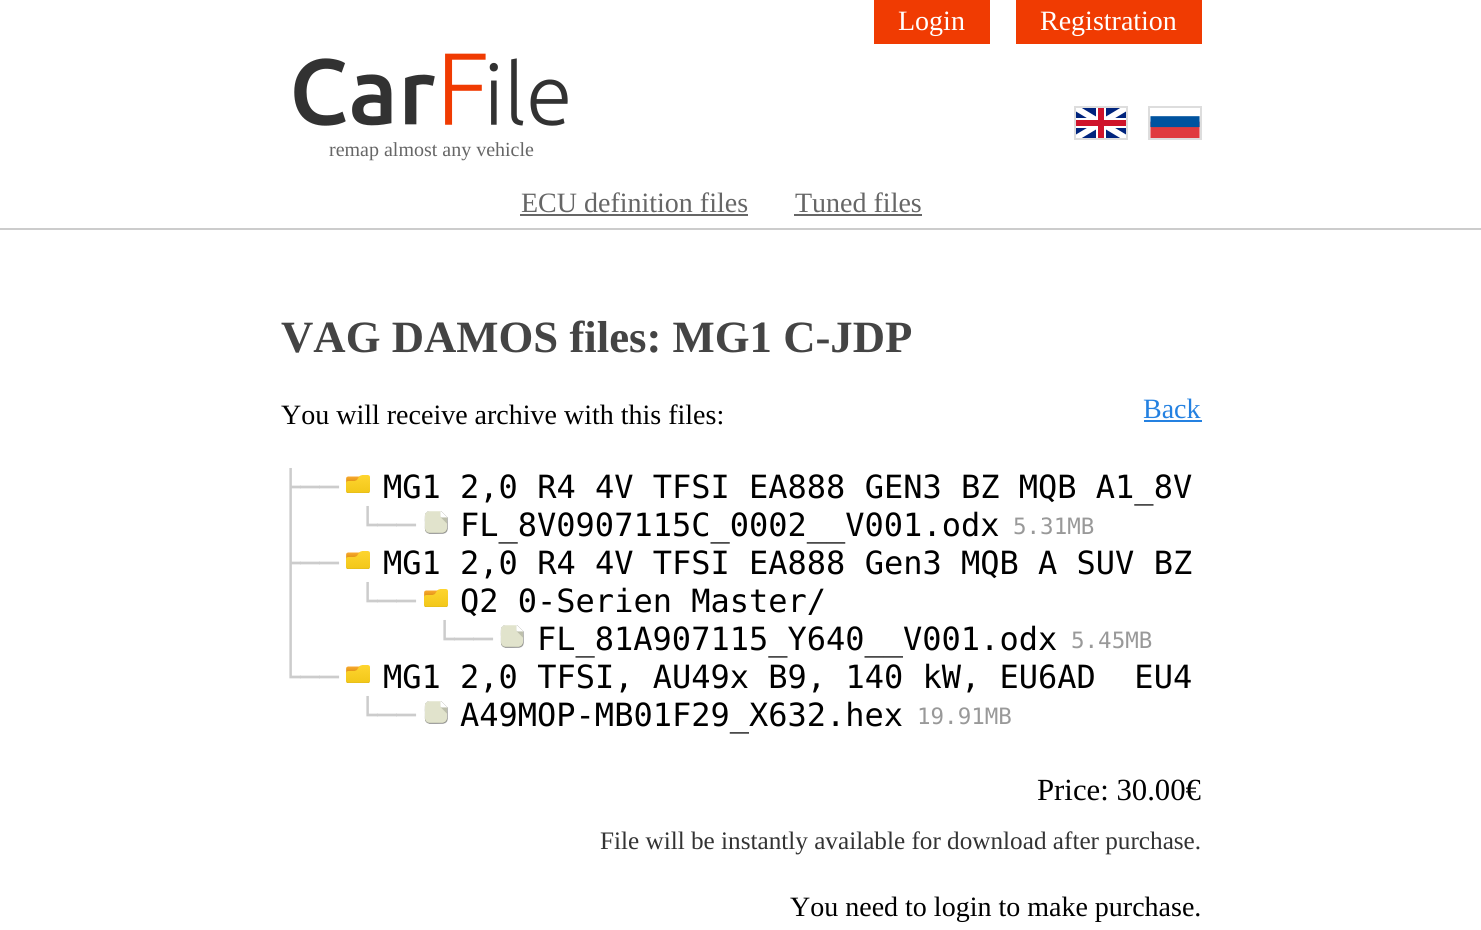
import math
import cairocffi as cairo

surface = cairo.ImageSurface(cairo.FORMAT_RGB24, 1481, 930)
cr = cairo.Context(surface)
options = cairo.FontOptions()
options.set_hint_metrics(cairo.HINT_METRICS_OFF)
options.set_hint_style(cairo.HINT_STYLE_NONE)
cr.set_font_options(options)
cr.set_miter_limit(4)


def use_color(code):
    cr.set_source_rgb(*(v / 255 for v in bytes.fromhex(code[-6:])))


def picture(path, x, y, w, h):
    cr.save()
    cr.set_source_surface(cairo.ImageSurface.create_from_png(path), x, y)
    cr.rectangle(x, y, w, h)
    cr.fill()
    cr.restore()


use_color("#ffffff")
cr.paint()
use_color("#f03b02")
cr.rectangle(874, 0, 116, 44)
cr.fill()
cr.select_font_face("Liberation Serif")
cr.set_font_size(28)
use_color("#ffffff")
cr.move_to(898, 30)
cr.show_text("Login")
use_color("#f03b02")
cr.rectangle(1016, 0, 186, 44)
cr.fill()
use_color("#ffffff")
cr.move_to(1040, 30)
cr.show_text("Registration")
picture("img1.png", 1076, 108, 50, 30)
cr.rectangle(1075, 107, 52, 32)
use_color("#dddddd")
cr.stroke()
picture("img2.png", 1150, 108, 50, 30)
cr.rectangle(1149, 107, 52, 32)
cr.stroke()
picture("img3.png", 294, 53, 274, 73)
cr.set_font_size(20)
use_color("#666666")
cr.move_to(329, 156)
cr.show_text("remap almost any vehicle")
use_color("#cccccc")
cr.rectangle(0, 228, 1481, 2)
cr.fill()
cr.set_font_size(28)
use_color("#666666")
cr.move_to(521, 212)
cr.show_text("ECU definition files")
cr.rectangle(520, 214, 228, 2)
cr.fill()
cr.move_to(795, 212)
cr.show_text("Tuned files")
cr.rectangle(794, 214, 128, 2)
cr.fill()
cr.select_font_face("Liberation Serif", cairo.FONT_SLANT_NORMAL, cairo.FONT_WEIGHT_BOLD)
cr.set_font_size(44.75)
use_color("#444444")
cr.move_to(281, 352)
cr.show_text("VAG DAMOS files: MG1 C-JDP")
cr.select_font_face("Liberation Serif")
cr.set_font_size(28)
use_color("#000000")
cr.move_to(281, 424)
cr.show_text("You will receive archive with this files:")
use_color("#2481e1")
cr.move_to(1143, 418)
cr.show_text("Back")
cr.rectangle(1144, 420, 58, 2)
cr.fill()
cr.select_font_face("DejaVu Sans Mono")
cr.set_font_size(32)
use_color("#cccccc")
cr.move_to(281, 498)
cr.show_text("├──")
picture("img4.png", 346, 475, 24, 18)
use_color("#000000")
cr.move_to(383, 498)
cr.show_text("MG1 2,0 R4 4V TFSI EA888 GEN3 BZ MQB A1_8V")
use_color("#cccccc")
cr.move_to(281, 536)
cr.show_text("│")
cr.move_to(358, 536)
cr.show_text("└──")
picture("img5.png", 424, 511, 24, 23)
use_color("#000000")
cr.move_to(460, 536)
cr.show_text("FL_8V0907115C_0002__V001.odx")
cr.set_font_size(22.5)
use_color("#999999")
cr.move_to(1013, 534)
cr.show_text("5.31MB")
cr.set_font_size(32)
use_color("#cccccc")
cr.move_to(281, 574)
cr.show_text("├──")
picture("img6.png", 346, 551, 24, 18)
use_color("#000000")
cr.move_to(383, 574)
cr.show_text("MG1 2,0 R4 4V TFSI EA888 Gen3 MQB A SUV BZ")
use_color("#cccccc")
cr.move_to(281, 612)
cr.show_text("│")
cr.move_to(358, 612)
cr.show_text("└──")
picture("img7.png", 424, 589, 24, 18)
use_color("#000000")
cr.move_to(460, 612)
cr.show_text("Q2 0-Serien Master/")
use_color("#cccccc")
cr.move_to(281, 650)
cr.show_text("│")
cr.move_to(435, 650)
cr.show_text("└──")
picture("img8.png", 500, 625, 24, 23)
use_color("#000000")
cr.move_to(537, 650)
cr.show_text("FL_81A907115_Y640__V001.odx")
cr.set_font_size(22.5)
use_color("#999999")
cr.move_to(1071, 648)
cr.show_text("5.45MB")
cr.set_font_size(32)
use_color("#cccccc")
cr.move_to(281, 688)
cr.show_text("└──")
picture("img4.png", 346, 665, 24, 18)
use_color("#000000")
cr.move_to(383, 688)
cr.show_text("MG1 2,0 TFSI, AU49x B9, 140 kW, EU6AD  EU4")
use_color("#cccccc")
cr.move_to(358, 726)
cr.show_text("└──")
picture("img9.png", 424, 701, 24, 23)
use_color("#000000")
cr.move_to(460, 726)
cr.show_text("A49MOP-MB01F29_X632.hex")
cr.set_font_size(22.5)
use_color("#999999")
cr.move_to(917, 724)
cr.show_text("19.91MB")
cr.select_font_face("Liberation Serif")
cr.set_font_size(30.75)
use_color("#000000")
cr.move_to(1037, 800)
cr.show_text("Price: 30.00€")
cr.set_font_size(25.2)
use_color("#333333")
cr.move_to(600, 849)
cr.show_text("File will be instantly available for download after purchase.")
cr.set_font_size(28)
use_color("#000000")
cr.move_to(790, 916)
cr.show_text("You need to login to make purchase.")
surface.write_to_png("result.png")
